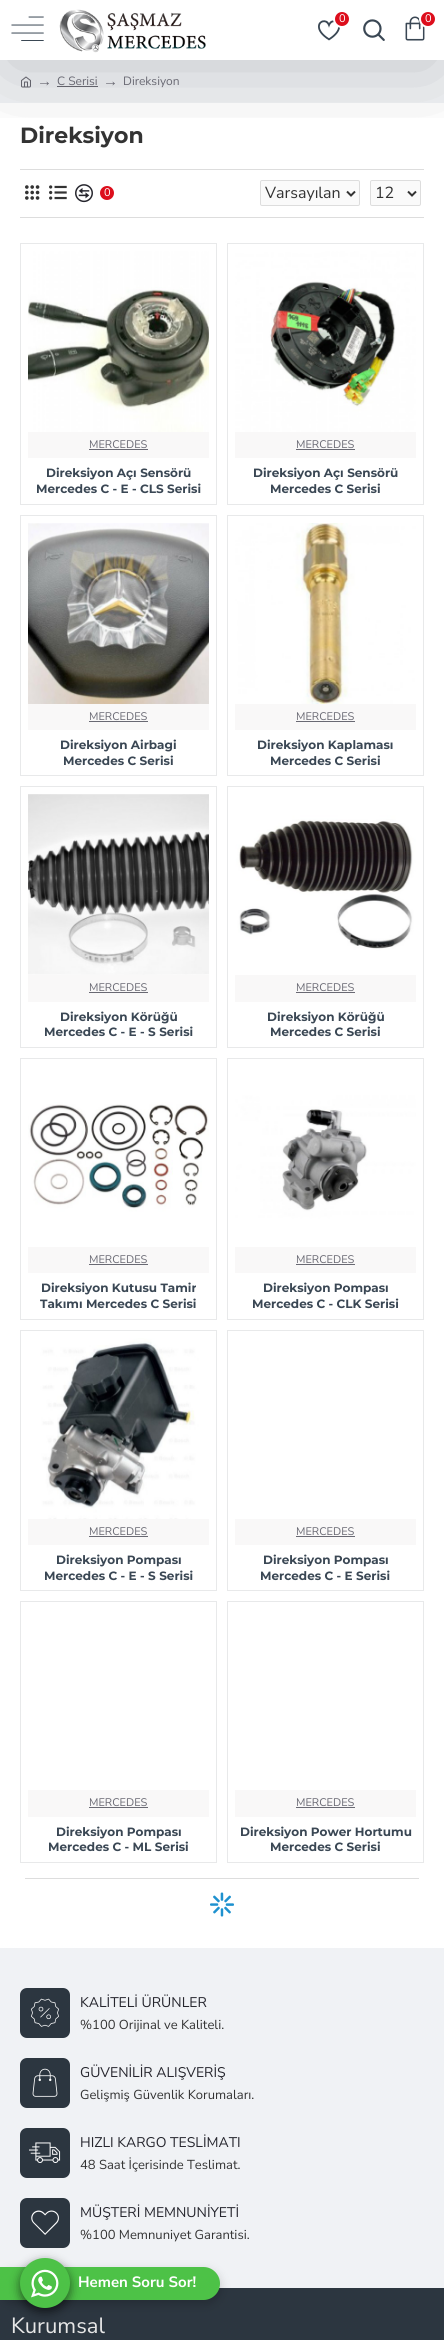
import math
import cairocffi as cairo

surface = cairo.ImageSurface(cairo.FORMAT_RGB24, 444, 2340)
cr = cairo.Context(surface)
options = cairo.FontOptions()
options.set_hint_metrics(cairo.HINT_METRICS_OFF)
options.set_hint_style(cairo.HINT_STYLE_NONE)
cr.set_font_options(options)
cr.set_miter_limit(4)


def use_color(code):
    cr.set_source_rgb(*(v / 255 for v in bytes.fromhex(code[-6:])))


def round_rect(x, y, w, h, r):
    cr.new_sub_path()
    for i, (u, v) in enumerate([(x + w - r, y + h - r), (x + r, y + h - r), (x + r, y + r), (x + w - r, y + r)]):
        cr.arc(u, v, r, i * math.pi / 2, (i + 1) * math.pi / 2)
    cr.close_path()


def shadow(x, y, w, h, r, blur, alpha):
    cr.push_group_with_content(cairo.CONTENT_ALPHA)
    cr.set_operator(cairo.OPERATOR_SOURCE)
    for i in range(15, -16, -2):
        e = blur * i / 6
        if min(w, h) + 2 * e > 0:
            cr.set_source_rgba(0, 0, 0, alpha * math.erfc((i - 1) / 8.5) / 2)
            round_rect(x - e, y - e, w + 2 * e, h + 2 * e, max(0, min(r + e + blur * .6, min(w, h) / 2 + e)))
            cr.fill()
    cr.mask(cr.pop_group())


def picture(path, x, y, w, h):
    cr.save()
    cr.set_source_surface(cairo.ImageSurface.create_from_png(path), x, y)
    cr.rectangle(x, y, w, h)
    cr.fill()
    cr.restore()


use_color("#ffffff")
cr.paint()
use_color("#f0f2f5")
cr.rectangle(0, 60, 444, 43)
cr.fill()
picture("img6.png", 21, 76, 10, 12)
use_color("#696973")
cr.rectangle(57, 86, 41, 1)
cr.fill()
use_color("#dddddd")
cr.rectangle(20, 169, 404, 1)
cr.fill()
picture("img7.png", 25, 185, 15, 15)
picture("img8.png", 49, 185, 18, 15)
picture("img9.png", 75, 184, 18, 19)
use_color("#dd0e1c")
cr.arc(107, 193, 8, 0, 2 * math.pi)
cr.fill_preserve()
use_color("#ffffff")
cr.stroke()
use_color("#fafafa")
round_rect(260.5, 180.5, 99, 25, 1.5)
cr.fill_preserve()
use_color("#dddddd")
cr.set_line_width(1)
cr.stroke()
cr.new_path()
cr.move_to(347, 191.5)
cr.line_to(351, 195.5)
cr.line_to(355, 191.5)
use_color("#333333")
cr.set_line_width(2)
cr.stroke()
use_color("#fafafa")
round_rect(370.5, 180.5, 50, 25, 1.5)
cr.fill_preserve()
use_color("#dddddd")
cr.set_line_width(1)
cr.stroke()
cr.new_path()
cr.move_to(408, 191.5)
cr.line_to(412, 195.5)
cr.line_to(416, 191.5)
use_color("#333333")
cr.set_line_width(2)
cr.stroke()
cr.save()
cr.rectangle(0, 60, 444, 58)
cr.clip()
use_color("#000000")
shadow(10, 25, 424, 40, 0, 45, 0.2)
cr.restore()
picture("img1.png", 59, 9, 147, 44)
picture("img2.png", 11, 16, 33, 25)
picture("img3.png", 318, 20, 22, 21)
use_color("#dd0e1c")
cr.arc(342, 19, 8, 0, 2 * math.pi)
cr.fill_preserve()
use_color("#ffffff")
cr.stroke()
cr.select_font_face("Nunito Sans")
cr.set_font_size(11)
cr.move_to(339, 22)
cr.show_text("0")
picture("img4.png", 363, 19, 22, 22)
picture("img5.png", 405, 16, 20, 25)
use_color("#dd0e1c")
cr.arc(428, 19, 8, 0, 2 * math.pi)
cr.fill_preserve()
use_color("#ffffff")
cr.stroke()
cr.move_to(425, 22)
cr.show_text("0")
cr.select_font_face("Liberation Serif")
cr.set_font_size(15)
use_color("#696973")
cr.move_to(37, 86)
cr.show_text("→")
cr.select_font_face("Nunito Sans")
cr.set_font_size(12)
cr.move_to(57, 85)
cr.show_text("C Serisi")
cr.select_font_face("Liberation Serif")
cr.set_font_size(15)
cr.move_to(103, 86)
cr.show_text("→")
cr.select_font_face("Nunito Sans")
cr.set_font_size(12)
cr.move_to(123, 85)
cr.show_text("Direksiyon")
cr.select_font_face("Montserrat", cairo.FONT_SLANT_NORMAL, cairo.FONT_WEIGHT_BOLD)
cr.set_font_size(22)
use_color("#333333")
cr.move_to(20, 143)
cr.show_text("Direksiyon")
use_color("#dddddd")
cr.rectangle(20, 217, 404, 1)
cr.fill()
cr.select_font_face("Nunito Sans")
cr.set_font_size(11)
use_color("#ffffff")
cr.move_to(104, 196)
cr.show_text("0")
cr.set_font_size(16)
use_color("#333333")
cr.move_to(265, 198)
cr.show_text("Varsayılan")
cr.move_to(375, 198)
cr.show_text("12")
cr.rectangle(20.5, 243.5, 196, 261)
use_color("#e8e9ea")
cr.set_line_width(1)
cr.stroke()
picture("img10.png", 28, 251, 181, 181)
use_color("#f9f8f8")
cr.rectangle(28, 432, 181, 26)
cr.fill()
cr.set_font_size(11)
use_color("#696973")
cr.move_to(89, 448)
cr.show_text("MERCEDES")
cr.rectangle(89, 449, 59, 1)
cr.fill()
cr.select_font_face("Montserrat", cairo.FONT_SLANT_NORMAL, cairo.FONT_WEIGHT_BOLD)
cr.set_font_size(12)
use_color("#3a4754")
cr.move_to(46, 477)
cr.show_text("Direksiyon Açı Sensörü")
cr.move_to(36, 493)
cr.show_text("Mercedes C - E - CLS Serisi")
cr.rectangle(227.5, 243.5, 196, 261)
use_color("#e8e9ea")
cr.stroke()
picture("img11.png", 235, 251, 181, 181)
use_color("#f9f8f8")
cr.rectangle(235, 432, 181, 26)
cr.fill()
cr.select_font_face("Nunito Sans")
cr.set_font_size(11)
use_color("#696973")
cr.move_to(296, 448)
cr.show_text("MERCEDES")
cr.rectangle(296, 449, 59, 1)
cr.fill()
cr.select_font_face("Montserrat", cairo.FONT_SLANT_NORMAL, cairo.FONT_WEIGHT_BOLD)
cr.set_font_size(12)
use_color("#3a4754")
cr.move_to(253, 477)
cr.show_text("Direksiyon Açı Sensörü")
cr.move_to(270, 493)
cr.show_text("Mercedes C Serisi")
cr.rectangle(20.5, 515.5, 196, 260)
use_color("#e8e9ea")
cr.stroke()
picture("img12.png", 28, 523, 181, 181)
use_color("#f9f8f8")
cr.rectangle(28, 704, 181, 26)
cr.fill()
cr.select_font_face("Nunito Sans")
cr.set_font_size(11)
use_color("#696973")
cr.move_to(89, 720)
cr.show_text("MERCEDES")
cr.rectangle(89, 721, 59, 1)
cr.fill()
cr.select_font_face("Montserrat", cairo.FONT_SLANT_NORMAL, cairo.FONT_WEIGHT_BOLD)
cr.set_font_size(12)
use_color("#3a4754")
cr.move_to(60, 749)
cr.show_text("Direksiyon Airbagi")
cr.move_to(63, 765)
cr.show_text("Mercedes C Serisi")
cr.rectangle(227.5, 515.5, 196, 260)
use_color("#e8e9ea")
cr.stroke()
picture("img13.png", 235, 523, 181, 181)
use_color("#f9f8f8")
cr.rectangle(235, 704, 181, 26)
cr.fill()
cr.select_font_face("Nunito Sans")
cr.set_font_size(11)
use_color("#696973")
cr.move_to(296, 720)
cr.show_text("MERCEDES")
cr.rectangle(296, 721, 59, 1)
cr.fill()
cr.select_font_face("Montserrat", cairo.FONT_SLANT_NORMAL, cairo.FONT_WEIGHT_BOLD)
cr.set_font_size(12)
use_color("#3a4754")
cr.move_to(257, 749)
cr.show_text("Direksiyon Kaplaması")
cr.move_to(270, 765)
cr.show_text("Mercedes C Serisi")
cr.rectangle(20.5, 786.5, 196, 261)
use_color("#e8e9ea")
cr.stroke()
picture("img14.png", 28, 794, 181, 181)
use_color("#f9f8f8")
cr.rectangle(28, 975, 181, 27)
cr.fill()
cr.select_font_face("Nunito Sans")
cr.set_font_size(11)
use_color("#696973")
cr.move_to(89, 991)
cr.show_text("MERCEDES")
cr.rectangle(89, 992, 59, 1)
cr.fill()
cr.select_font_face("Montserrat", cairo.FONT_SLANT_NORMAL, cairo.FONT_WEIGHT_BOLD)
cr.set_font_size(12)
use_color("#3a4754")
cr.move_to(60, 1021)
cr.show_text("Direksiyon Körüğü")
cr.move_to(44, 1036)
cr.show_text("Mercedes C - E - S Serisi")
cr.rectangle(227.5, 786.5, 196, 261)
use_color("#e8e9ea")
cr.stroke()
picture("img15.png", 235, 794, 181, 181)
use_color("#f9f8f8")
cr.rectangle(235, 975, 181, 27)
cr.fill()
cr.select_font_face("Nunito Sans")
cr.set_font_size(11)
use_color("#696973")
cr.move_to(296, 991)
cr.show_text("MERCEDES")
cr.rectangle(296, 992, 59, 1)
cr.fill()
cr.select_font_face("Montserrat", cairo.FONT_SLANT_NORMAL, cairo.FONT_WEIGHT_BOLD)
cr.set_font_size(12)
use_color("#3a4754")
cr.move_to(267, 1021)
cr.show_text("Direksiyon Körüğü")
cr.move_to(270, 1036)
cr.show_text("Mercedes C Serisi")
cr.rectangle(20.5, 1058.5, 196, 261)
use_color("#e8e9ea")
cr.stroke()
picture("img16.png", 28, 1066, 181, 181)
use_color("#f9f8f8")
cr.rectangle(28, 1247, 181, 26)
cr.fill()
cr.select_font_face("Nunito Sans")
cr.set_font_size(11)
use_color("#696973")
cr.move_to(89, 1263)
cr.show_text("MERCEDES")
cr.rectangle(89, 1264, 59, 1)
cr.fill()
cr.select_font_face("Montserrat", cairo.FONT_SLANT_NORMAL, cairo.FONT_WEIGHT_BOLD)
cr.set_font_size(12)
use_color("#3a4754")
cr.move_to(41, 1292)
cr.show_text("Direksiyon Kutusu Tamir")
cr.move_to(40, 1308)
cr.show_text("Takımı Mercedes C Serisi")
cr.rectangle(227.5, 1058.5, 196, 261)
use_color("#e8e9ea")
cr.stroke()
picture("img17.png", 235, 1066, 181, 181)
use_color("#f9f8f8")
cr.rectangle(235, 1247, 181, 26)
cr.fill()
cr.select_font_face("Nunito Sans")
cr.set_font_size(11)
use_color("#696973")
cr.move_to(296, 1263)
cr.show_text("MERCEDES")
cr.rectangle(296, 1264, 59, 1)
cr.fill()
cr.select_font_face("Montserrat", cairo.FONT_SLANT_NORMAL, cairo.FONT_WEIGHT_BOLD)
cr.set_font_size(12)
use_color("#3a4754")
cr.move_to(263, 1292)
cr.show_text("Direksiyon Pompası")
cr.move_to(252, 1308)
cr.show_text("Mercedes C - CLK Serisi")
cr.rectangle(20.5, 1330.5, 196, 260)
use_color("#e8e9ea")
cr.stroke()
picture("img18.png", 28, 1338, 181, 181)
use_color("#f9f8f8")
cr.rectangle(28, 1519, 181, 26)
cr.fill()
cr.select_font_face("Nunito Sans")
cr.set_font_size(11)
use_color("#696973")
cr.move_to(89, 1535)
cr.show_text("MERCEDES")
cr.rectangle(89, 1536, 59, 1)
cr.fill()
cr.select_font_face("Montserrat", cairo.FONT_SLANT_NORMAL, cairo.FONT_WEIGHT_BOLD)
cr.set_font_size(12)
use_color("#3a4754")
cr.move_to(56, 1564)
cr.show_text("Direksiyon Pompası")
cr.move_to(44, 1580)
cr.show_text("Mercedes C - E - S Serisi")
cr.rectangle(227.5, 1330.5, 196, 260)
use_color("#e8e9ea")
cr.stroke()
use_color("#f9f8f8")
cr.rectangle(235, 1519, 181, 26)
cr.fill()
cr.select_font_face("Nunito Sans")
cr.set_font_size(11)
use_color("#696973")
cr.move_to(296, 1535)
cr.show_text("MERCEDES")
cr.rectangle(296, 1536, 59, 1)
cr.fill()
cr.select_font_face("Montserrat", cairo.FONT_SLANT_NORMAL, cairo.FONT_WEIGHT_BOLD)
cr.set_font_size(12)
use_color("#3a4754")
cr.move_to(263, 1564)
cr.show_text("Direksiyon Pompası")
cr.move_to(260, 1580)
cr.show_text("Mercedes C - E Serisi")
cr.rectangle(20.5, 1601.5, 196, 261)
use_color("#e8e9ea")
cr.stroke()
use_color("#f9f8f8")
cr.rectangle(28, 1790, 181, 27)
cr.fill()
cr.select_font_face("Nunito Sans")
cr.set_font_size(11)
use_color("#696973")
cr.move_to(89, 1806)
cr.show_text("MERCEDES")
cr.rectangle(89, 1807, 59, 1)
cr.fill()
cr.select_font_face("Montserrat", cairo.FONT_SLANT_NORMAL, cairo.FONT_WEIGHT_BOLD)
cr.set_font_size(12)
use_color("#3a4754")
cr.move_to(56, 1836)
cr.show_text("Direksiyon Pompası")
cr.move_to(48, 1851)
cr.show_text("Mercedes C - ML Serisi")
cr.rectangle(227.5, 1601.5, 196, 261)
use_color("#e8e9ea")
cr.stroke()
use_color("#f9f8f8")
cr.rectangle(235, 1790, 181, 27)
cr.fill()
cr.select_font_face("Nunito Sans")
cr.set_font_size(11)
use_color("#696973")
cr.move_to(296, 1806)
cr.show_text("MERCEDES")
cr.rectangle(296, 1807, 59, 1)
cr.fill()
cr.select_font_face("Montserrat", cairo.FONT_SLANT_NORMAL, cairo.FONT_WEIGHT_BOLD)
cr.set_font_size(12)
use_color("#3a4754")
cr.move_to(240, 1836)
cr.show_text("Direksiyon Power Hortumu")
cr.move_to(270, 1851)
cr.show_text("Mercedes C Serisi")
use_color("#dddddd")
cr.rectangle(25, 1878, 394, 1)
cr.fill()
picture("img19.png", 210, 1892, 24, 25)
use_color("#2c3640")
cr.rectangle(0, 2288, 444, 52)
cr.fill()
use_color("#f0f2f5")
cr.rectangle(0, 1948, 444, 340)
cr.fill()
use_color("#2c3640")
round_rect(20, 1988, 50, 50, 7)
cr.fill()
picture("img20.png", 31, 1998, 28, 29)
cr.select_font_face("Nunito Sans")
cr.set_font_size(14)
use_color("#25252d")
cr.move_to(80, 2007)
cr.show_text("KALİTELİ ÜRÜNLER")
cr.set_font_size(13)
use_color("#333333")
cr.move_to(80, 2029)
cr.show_text("%100 Orijinal ve Kaliteli.")
use_color("#2c3640")
round_rect(20, 2058, 50, 50, 7)
cr.fill()
picture("img21.png", 32, 2068, 26, 29)
cr.set_font_size(14)
use_color("#25252d")
cr.move_to(80, 2077)
cr.show_text("GÜVENİLİR ALIŞVERİŞ")
cr.set_font_size(13)
use_color("#333333")
cr.move_to(80, 2099)
cr.show_text("Gelişmiş Güvenlik Korumaları.")
use_color("#2c3640")
round_rect(20, 2128, 50, 50, 7)
cr.fill()
picture("img22.png", 29, 2142, 32, 21)
cr.set_font_size(14)
use_color("#25252d")
cr.move_to(80, 2147)
cr.show_text("HIZLI KARGO TESLİMATI")
cr.set_font_size(13)
use_color("#333333")
cr.move_to(80, 2169)
cr.show_text("48 Saat İçerisinde Teslimat.")
use_color("#2c3640")
round_rect(20, 2198, 50, 50, 7)
cr.fill()
picture("img23.png", 31, 2210, 28, 25)
cr.set_font_size(14)
use_color("#25252d")
cr.move_to(80, 2217)
cr.show_text("MÜŞTERİ MEMNUNİYETİ")
cr.set_font_size(13)
use_color("#333333")
cr.move_to(80, 2239)
cr.show_text("%100 Memnuniyet Garantisi.")
cr.set_font_size(22)
use_color("#e6e6e6")
cr.move_to(11, 2333)
cr.show_text("Kurumsal")
use_color("#000000")
shadow(0, 2271, 220, 33, 16.5, 5, 0.18)
use_color("#4dc247")
cr.new_path()
cr.move_to(0, 2267)
cr.line_to(203.5, 2267)
cr.curve_to(212.5, 2267, 220, 2274.5, 220, 2283.5)
cr.curve_to(220, 2292.5, 212.5, 2300, 203.5, 2300)
cr.line_to(0, 2300)
cr.close_path()
cr.fill()
use_color("#000000")
shadow(20, 2262, 50, 50, 25, 5, 0.56)
use_color("#4dc247")
cr.arc(45, 2283, 25, 0, 2 * math.pi)
cr.fill()
picture("img24.png", 31, 2269, 28, 29)
cr.select_font_face("Nunito Sans", cairo.FONT_SLANT_NORMAL, cairo.FONT_WEIGHT_BOLD)
cr.set_font_size(15)
use_color("#ffffff")
cr.move_to(78, 2287)
cr.show_text("Hemen Soru Sor!")
surface.write_to_png("result.png")
